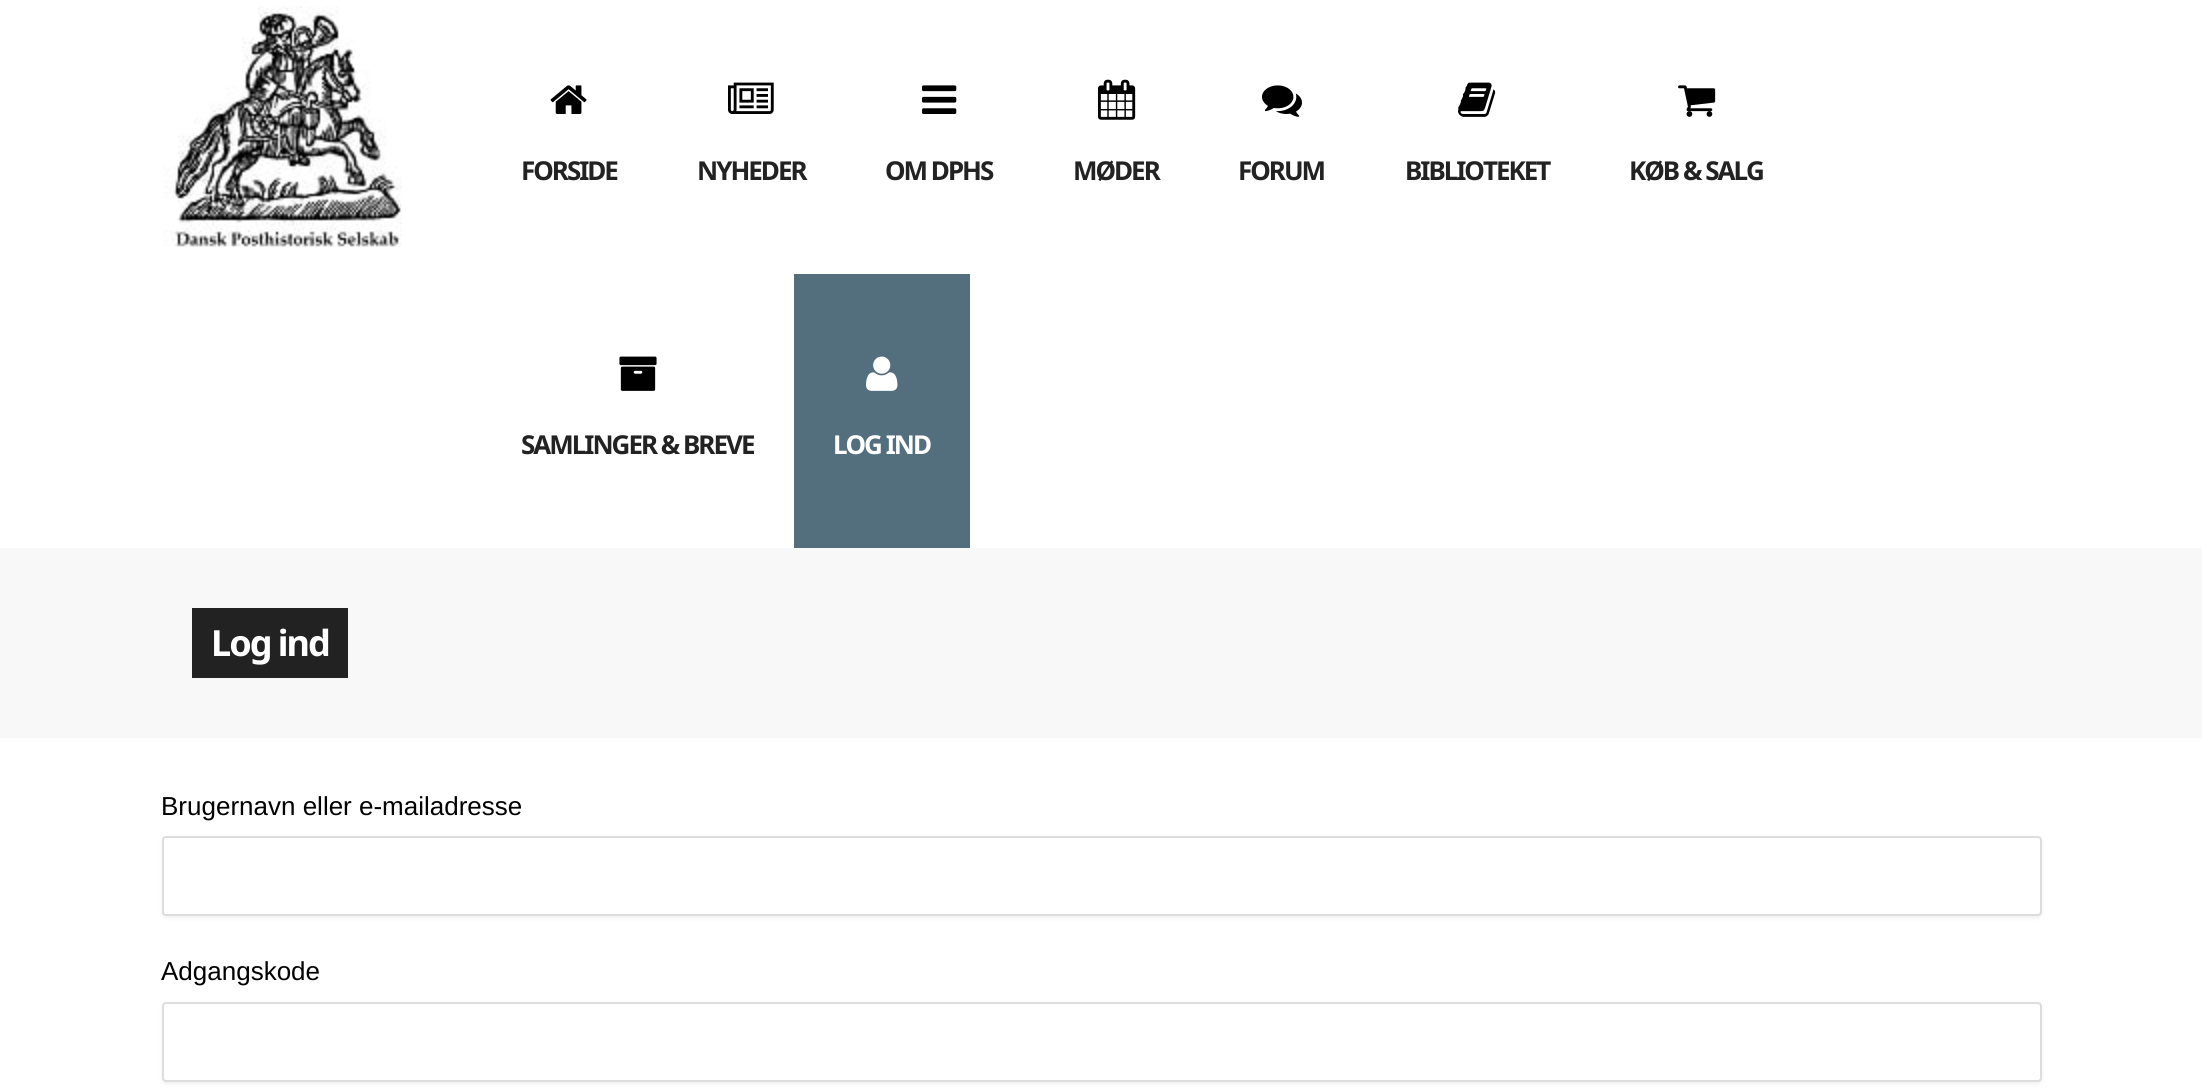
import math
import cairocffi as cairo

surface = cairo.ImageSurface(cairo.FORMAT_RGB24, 2202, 1089)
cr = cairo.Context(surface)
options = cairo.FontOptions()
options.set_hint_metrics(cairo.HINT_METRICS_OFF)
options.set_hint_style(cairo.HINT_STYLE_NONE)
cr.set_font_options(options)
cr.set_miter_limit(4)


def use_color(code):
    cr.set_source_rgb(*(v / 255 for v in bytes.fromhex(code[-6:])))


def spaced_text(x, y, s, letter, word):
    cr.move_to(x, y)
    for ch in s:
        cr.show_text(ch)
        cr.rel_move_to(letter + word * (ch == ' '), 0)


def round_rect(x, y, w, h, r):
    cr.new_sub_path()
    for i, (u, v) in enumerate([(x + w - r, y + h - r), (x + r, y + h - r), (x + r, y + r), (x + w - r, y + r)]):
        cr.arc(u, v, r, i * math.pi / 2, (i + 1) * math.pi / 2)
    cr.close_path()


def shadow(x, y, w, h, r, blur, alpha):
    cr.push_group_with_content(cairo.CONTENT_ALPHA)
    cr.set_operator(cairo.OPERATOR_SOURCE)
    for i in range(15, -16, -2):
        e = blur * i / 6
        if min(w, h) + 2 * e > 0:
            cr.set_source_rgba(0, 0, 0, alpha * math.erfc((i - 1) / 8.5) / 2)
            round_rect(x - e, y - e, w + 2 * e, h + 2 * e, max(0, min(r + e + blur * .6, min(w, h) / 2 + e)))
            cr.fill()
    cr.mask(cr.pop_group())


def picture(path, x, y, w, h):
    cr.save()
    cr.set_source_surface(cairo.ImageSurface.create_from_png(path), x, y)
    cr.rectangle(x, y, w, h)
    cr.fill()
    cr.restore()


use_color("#ffffff")
cr.paint()
picture("img1.png", 163, 6, 239, 241)
picture("img2.png", 550, 85, 37, 29)
cr.select_font_face("Noto Sans", cairo.FONT_SLANT_NORMAL, cairo.FONT_WEIGHT_BOLD)
cr.set_font_size(26)
use_color("#222222")
spaced_text(521, 180, "FORSIDE", -2, 0)
picture("img3.png", 728, 82, 46, 32)
spaced_text(697, 180, "NYHEDER", -2, 0)
picture("img4.png", 922, 85, 35, 29)
spaced_text(885, 180, "OM DPHS", -2, 0)
picture("img5.png", 1098, 79, 38, 41)
spaced_text(1073, 180, "MØDER", -2, 0)
picture("img6.png", 1262, 85, 40, 32)
spaced_text(1238, 180, "FORUM", -2, 0)
picture("img7.png", 1458, 82, 38, 35)
spaced_text(1405, 180, "BIBLIOTEKET", -2, 0)
picture("img8.png", 1678, 85, 38, 32)
spaced_text(1629, 180, "KØB & SALG", -2, 0)
picture("img9.png", 619, 356, 38, 35)
spaced_text(521, 454, "SAMLINGER & BREVE", -2, 0)
use_color("#536e7d")
cr.rectangle(794, 274, 176, 274)
cr.fill()
picture("img10.png", 866, 356, 32, 35)
use_color("#ffffff")
spaced_text(833, 454, "LOG IND", -2, 0)
use_color("#f8f8f8")
cr.rectangle(0, 548, 2202, 190)
cr.fill()
use_color("#222222")
cr.rectangle(192, 608, 156, 70)
cr.fill()
cr.set_font_size(36)
use_color("#ffffff")
spaced_text(211, 656, "Log ind", -2, 0)
cr.select_font_face("Liberation Sans")
cr.set_font_size(26)
use_color("#000000")
cr.move_to(161, 815)
cr.show_text("Brugernavn eller e-mailadresse")
use_color("#b4b4b4")
shadow(162, 838, 1880, 80, 4, 2, 0.2)
use_color("#ffffff")
round_rect(163, 837, 1878, 78, 3)
cr.fill_preserve()
use_color("#dddddd")
cr.stroke()
use_color("#000000")
cr.move_to(161, 980)
cr.show_text("Adgangskode")
use_color("#b4b4b4")
shadow(162, 1004, 1880, 80, 4, 2, 0.2)
use_color("#ffffff")
round_rect(163, 1003, 1878, 78, 3)
cr.fill_preserve()
use_color("#dddddd")
cr.stroke()
surface.write_to_png("result.png")
